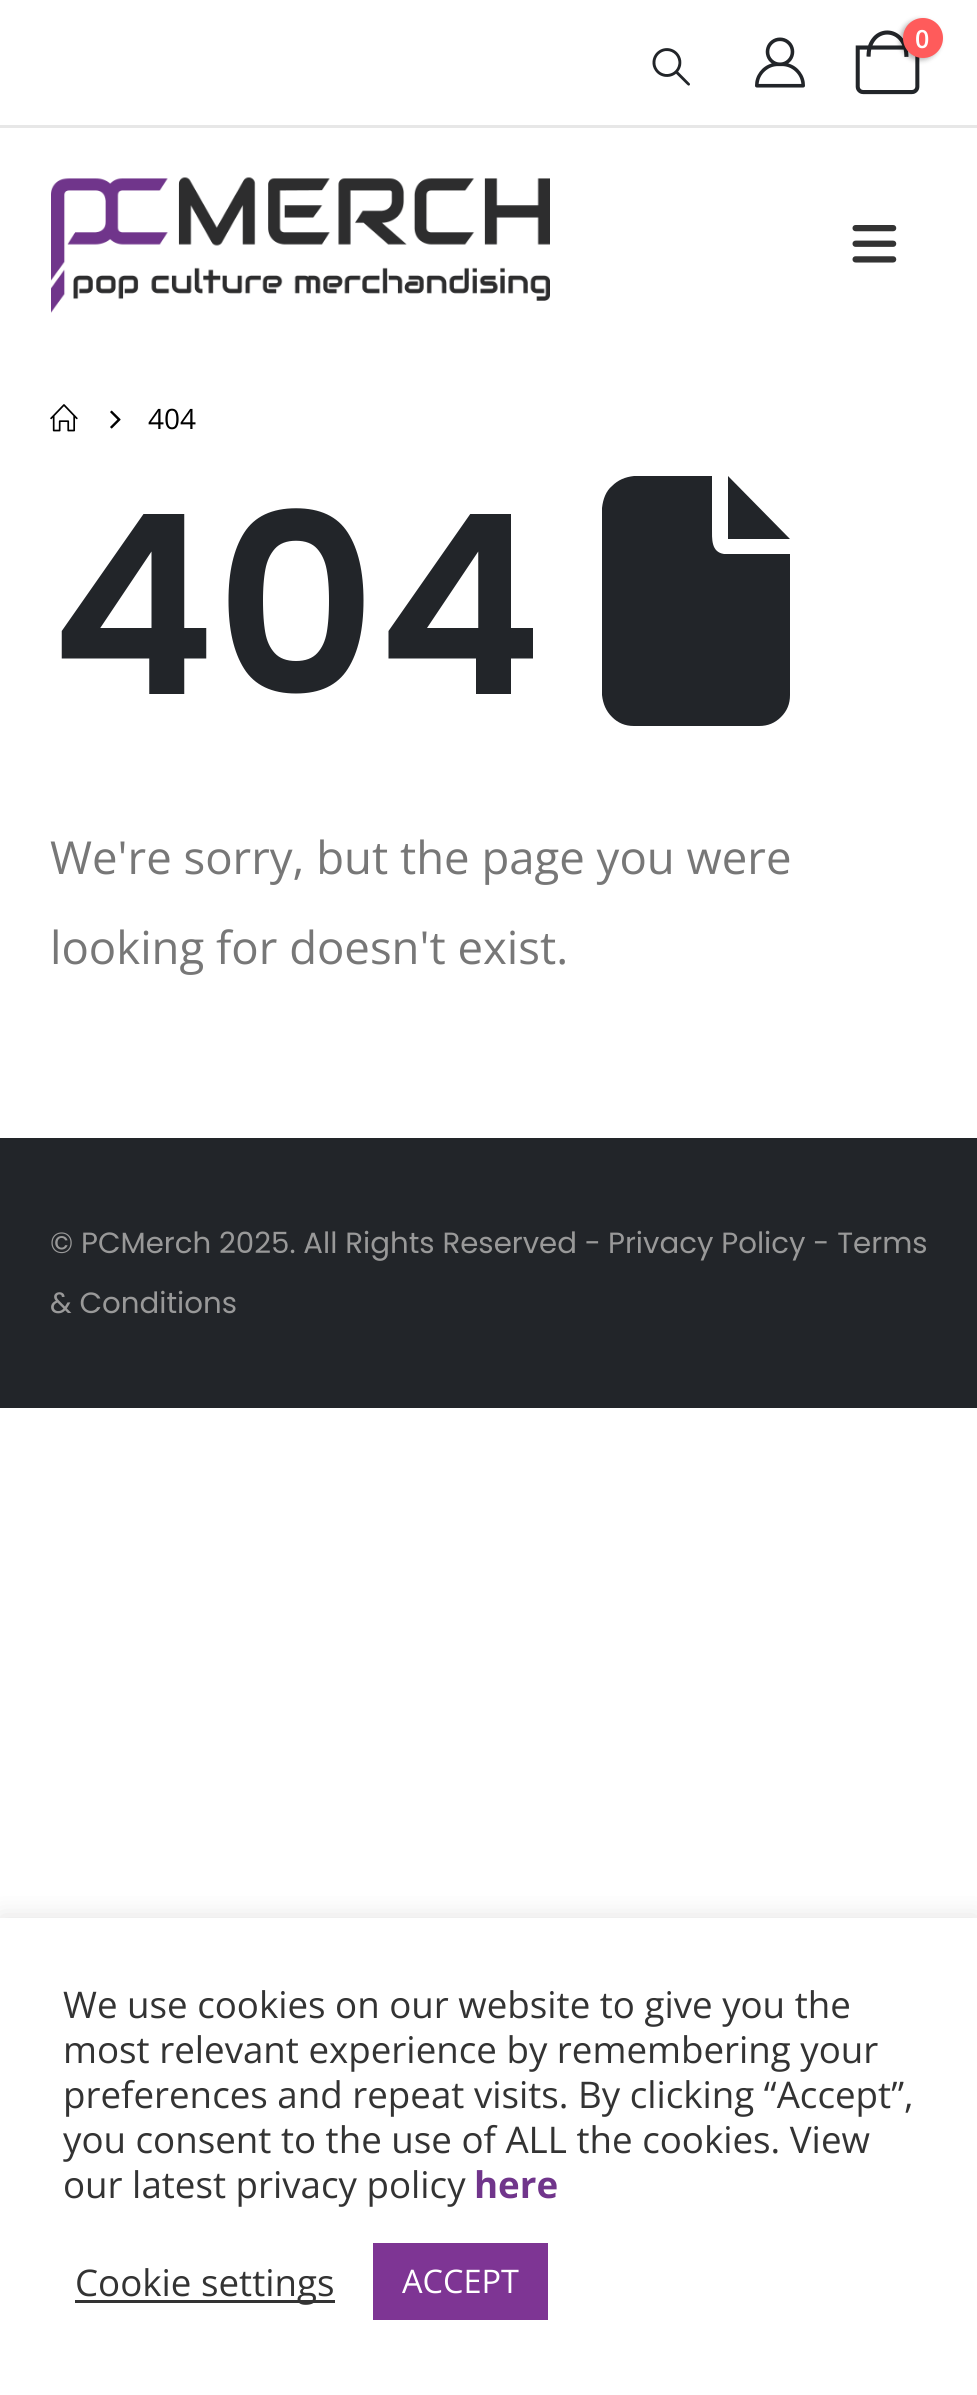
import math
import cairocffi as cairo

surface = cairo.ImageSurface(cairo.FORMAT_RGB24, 977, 2395)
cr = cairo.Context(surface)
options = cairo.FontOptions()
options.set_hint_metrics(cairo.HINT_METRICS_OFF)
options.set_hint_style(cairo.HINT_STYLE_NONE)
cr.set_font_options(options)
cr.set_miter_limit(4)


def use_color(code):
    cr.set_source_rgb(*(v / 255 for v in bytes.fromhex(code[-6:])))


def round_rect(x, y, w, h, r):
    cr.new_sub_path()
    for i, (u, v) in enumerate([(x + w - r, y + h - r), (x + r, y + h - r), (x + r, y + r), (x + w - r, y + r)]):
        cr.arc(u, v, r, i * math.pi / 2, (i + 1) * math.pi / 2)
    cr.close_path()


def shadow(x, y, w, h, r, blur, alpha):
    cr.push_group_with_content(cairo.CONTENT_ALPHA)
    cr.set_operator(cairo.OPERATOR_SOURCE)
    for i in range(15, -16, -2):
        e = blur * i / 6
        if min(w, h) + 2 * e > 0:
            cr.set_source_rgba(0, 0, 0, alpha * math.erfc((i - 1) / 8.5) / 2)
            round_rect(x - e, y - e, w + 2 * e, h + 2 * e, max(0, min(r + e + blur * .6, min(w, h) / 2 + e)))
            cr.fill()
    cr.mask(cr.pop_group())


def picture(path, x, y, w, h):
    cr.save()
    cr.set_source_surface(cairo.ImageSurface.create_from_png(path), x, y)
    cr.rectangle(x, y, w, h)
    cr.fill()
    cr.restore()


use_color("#ffffff")
cr.paint()
use_color("#e7e7e7")
cr.rectangle(0, 125, 977, 3)
cr.fill()
picture("img1.png", 652, 48, 38, 38)
picture("img2.png", 755, 37, 50, 51)
picture("img3.png", 855, 30, 65, 65)
use_color("#000000")
shadow(900, 20, 40, 40, 20, 2.5, 0.3)
use_color("#ff5b5b")
cr.arc(923, 38, 20, 0, 2 * math.pi)
cr.fill()
cr.select_font_face("Open Sans SemiBold")
cr.set_font_size(25)
use_color("#ffffff")
cr.move_to(915, 48)
cr.show_text("0")
picture("img4.png", 51, 177, 499, 136)
picture("img5.png", 852, 225, 45, 38)
picture("img6.png", 50, 404, 28, 28)
picture("img7.png", 110, 410, 11, 19)
cr.select_font_face("Open Sans")
cr.set_font_size(28)
use_color("#000000")
cr.move_to(148, 429)
cr.show_text("404")
cr.select_font_face("Poppins SemiBold")
cr.set_font_size(250)
use_color("#222529")
cr.move_to(50, 694)
cr.show_text("404")
cr.new_path()
cr.move_to(602, 508)
cr.curve_to(603, 499, 606, 491, 612, 486)
cr.curve_to(618, 480, 625, 477, 634, 476)
cr.line_to(712, 476)
cr.line_to(712, 528)
cr.curve_to(712, 539, 711, 552, 724, 554)
cr.line_to(790, 554)
cr.line_to(790, 695)
cr.curve_to(790, 704, 787, 711, 781, 717)
cr.curve_to(775, 723, 768, 726, 759, 726)
cr.line_to(634, 726)
cr.curve_to(625, 726, 618, 723, 612, 717)
cr.curve_to(606, 711, 603, 704, 602, 695)
cr.close_path()
cr.move_to(790, 539)
cr.line_to(728, 539)
cr.line_to(728, 476)
cr.close_path()
cr.fill()
cr.select_font_face("Open Sans")
cr.set_font_size(45.5)
use_color("#777777")
cr.move_to(50, 874)
cr.show_text("We're sorry, but the page you were")
cr.move_to(50, 964)
cr.show_text("looking for doesn't exist.")
use_color("#222529")
cr.rectangle(0, 1138, 977, 270)
cr.fill()
cr.select_font_face("Poppins")
cr.set_font_size(29.25)
use_color("#999999")
cr.move_to(50, 1253)
cr.show_text("© PCMerch 2025. All Rights Reserved -")
cr.move_to(608, 1253)
cr.show_text("Privacy Policy - Terms")
cr.move_to(50, 1313)
cr.show_text("& Conditions")
cr.save()
cr.rectangle(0, 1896, 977, 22)
cr.clip()
use_color("#acabab")
shadow(0, 1915, 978, 478, 0, 12.5, 0.3)
cr.restore()
cr.select_font_face("Open Sans")
cr.set_font_size(36.7)
use_color("#333333")
cr.move_to(63, 2018)
cr.show_text("We use cookies on our website to give you the")
cr.move_to(63, 2063)
cr.show_text("most relevant experience by remembering your")
cr.move_to(63, 2108)
cr.show_text("preferences and repeat visits. By clicking “Accept”,")
cr.move_to(63, 2153)
cr.show_text("you consent to the use of ALL the cookies. View")
cr.move_to(63, 2198)
cr.show_text("our latest privacy policy")
cr.select_font_face("Open Sans", cairo.FONT_SLANT_NORMAL, cairo.FONT_WEIGHT_BOLD)
use_color("#70358b")
cr.move_to(474, 2198)
cr.show_text("here")
use_color("#333333")
cr.rectangle(75, 2300, 260, 3)
cr.fill()
cr.select_font_face("Open Sans")
cr.move_to(75, 2296)
cr.show_text("Cookie settings")
use_color("#7e3594")
cr.rectangle(373, 2243, 175, 77)
cr.fill()
cr.set_font_size(32.5)
use_color("#ffffff")
cr.move_to(402, 2293)
cr.show_text("ACCEPT")
surface.write_to_png("result.png")
